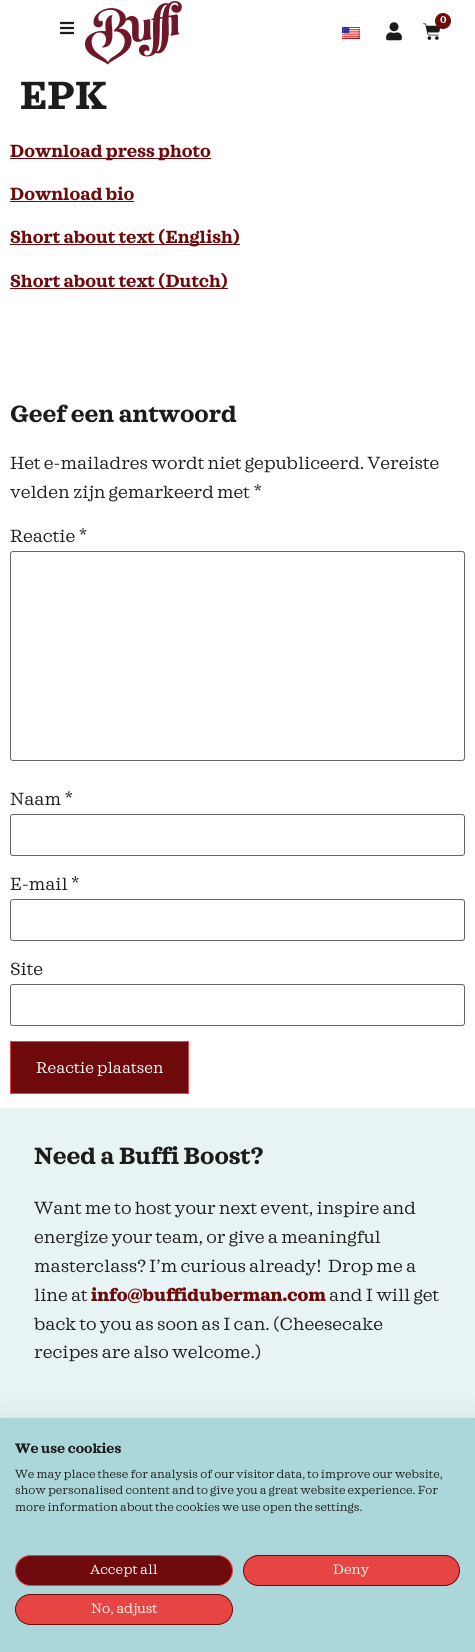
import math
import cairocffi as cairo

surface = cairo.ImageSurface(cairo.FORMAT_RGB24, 475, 1652)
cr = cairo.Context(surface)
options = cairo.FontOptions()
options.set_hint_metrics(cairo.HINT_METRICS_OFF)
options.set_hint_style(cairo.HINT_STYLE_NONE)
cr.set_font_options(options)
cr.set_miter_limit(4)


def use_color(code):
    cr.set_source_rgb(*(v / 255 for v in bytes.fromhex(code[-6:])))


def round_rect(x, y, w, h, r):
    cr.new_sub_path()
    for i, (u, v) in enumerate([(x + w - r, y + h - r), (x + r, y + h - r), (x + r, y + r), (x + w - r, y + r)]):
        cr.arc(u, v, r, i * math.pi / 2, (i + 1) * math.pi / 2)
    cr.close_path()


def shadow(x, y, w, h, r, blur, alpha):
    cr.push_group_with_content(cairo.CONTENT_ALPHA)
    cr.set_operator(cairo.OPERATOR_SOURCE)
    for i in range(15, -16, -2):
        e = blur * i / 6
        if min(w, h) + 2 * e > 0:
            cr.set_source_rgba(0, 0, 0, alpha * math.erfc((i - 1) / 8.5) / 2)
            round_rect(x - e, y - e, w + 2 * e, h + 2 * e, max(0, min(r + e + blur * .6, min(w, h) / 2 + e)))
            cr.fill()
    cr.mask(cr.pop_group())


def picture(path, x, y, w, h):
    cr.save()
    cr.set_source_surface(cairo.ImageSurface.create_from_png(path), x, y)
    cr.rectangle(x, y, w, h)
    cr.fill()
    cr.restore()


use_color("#ffffff")
cr.paint()
picture("img1.png", 60, 21, 14, 14)
picture("img2.png", 85, 1, 97, 64)
picture("img3.png", 423, 23, 17, 17)
use_color("#6e0a0c")
cr.arc(443, 21, 8, 0, 2 * math.pi)
cr.fill()
cr.select_font_face("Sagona", cairo.FONT_SLANT_NORMAL, cairo.FONT_WEIGHT_BOLD)
cr.set_font_size(10)
use_color("#ffffff")
cr.move_to(440, 23)
cr.show_text("0")
picture("img4.png", 342, 27, 18, 12)
picture("img5.png", 386, 22, 16, 19)
cr.set_font_size(40)
use_color("#1c1c1b")
cr.move_to(20, 109)
cr.show_text("EPK")
use_color("#6e0a0c")
cr.rectangle(10, 158, 201, 1)
cr.fill()
cr.set_font_size(18)
cr.move_to(10, 157)
cr.show_text("Download press photo")
cr.move_to(10, 200)
cr.show_text("Download bio")
cr.rectangle(10, 201, 124, 1)
cr.fill()
cr.rectangle(10, 244, 230, 1)
cr.fill()
cr.move_to(10, 243)
cr.show_text("Short about text (English)")
cr.rectangle(10, 288, 218, 1)
cr.fill()
cr.move_to(10, 287)
cr.show_text("Short about text (Dutch)")
cr.set_font_size(24)
use_color("#1c1c1b")
cr.move_to(10, 422)
cr.show_text("Geef een antwoord")
cr.select_font_face("Sagona")
cr.set_font_size(18)
cr.move_to(10, 469)
cr.show_text("Het e-mailadres wordt niet gepubliceerd. Vereiste")
cr.move_to(10, 498)
cr.show_text("velden zijn gemarkeerd met *")
cr.move_to(10, 542)
cr.show_text("Reactie *")
round_rect(10.5, 551.5, 454, 209, 2.5)
use_color("#666666")
cr.set_line_width(1)
cr.stroke()
use_color("#1c1c1b")
cr.move_to(10, 805)
cr.show_text("Naam *")
round_rect(10.5, 814.5, 454, 41, 2.5)
use_color("#666666")
cr.stroke()
use_color("#1c1c1b")
cr.move_to(10, 890)
cr.show_text("E-mail *")
round_rect(10.5, 899.5, 454, 41, 2.5)
use_color("#666666")
cr.stroke()
use_color("#1c1c1b")
cr.move_to(10, 975)
cr.show_text("Site")
round_rect(10.5, 984.5, 454, 41, 2.5)
use_color("#666666")
cr.stroke()
use_color("#6e0a0c")
cr.rectangle(10.5, 1041.5, 178, 52)
cr.fill_preserve()
use_color("#e74543")
cr.stroke()
cr.set_font_size(16)
use_color("#ffffff")
cr.move_to(36, 1073)
cr.show_text("Reactie plaatsen")
use_color("#e8f4f4")
cr.rectangle(0, 1108, 475, 310)
cr.fill()
cr.select_font_face("Sagona", cairo.FONT_SLANT_NORMAL, cairo.FONT_WEIGHT_BOLD)
cr.set_font_size(24)
use_color("#1c1c1b")
cr.move_to(34, 1164)
cr.show_text("Need a Buffi Boost?")
cr.select_font_face("Sagona")
cr.set_font_size(18)
cr.move_to(34, 1214)
cr.show_text("Want me to host your next event, inspire and")
cr.move_to(34, 1243)
cr.show_text("energize your team, or give a meaningful")
cr.move_to(34, 1272)
cr.show_text("masterclass? I’m curious already!  Drop me a")
cr.move_to(34, 1301)
cr.show_text("line at")
cr.select_font_face("Sagona Black")
use_color("#6e0a0c")
cr.move_to(91, 1301)
cr.show_text("info@buffiduberman.com")
cr.select_font_face("Sagona")
use_color("#1c1c1b")
cr.move_to(329, 1301)
cr.show_text("and I will get")
cr.move_to(34, 1330)
cr.show_text("back to you as soon as I can. (Cheesecake")
cr.move_to(34, 1358)
cr.show_text("recipes are also welcome.)")
use_color("#000000")
shadow(0, 1418, 475, 234, 0, 12, 0.1)
use_color("#acd7da")
cr.rectangle(0, 1418, 475, 234)
cr.fill()
cr.select_font_face("Sagona", cairo.FONT_SLANT_NORMAL, cairo.FONT_WEIGHT_BOLD)
cr.set_font_size(14)
use_color("#1c1c1b")
cr.move_to(15, 1453)
cr.show_text("We use cookies")
cr.select_font_face("Sagona")
cr.set_font_size(12)
cr.move_to(15, 1478)
cr.show_text("We may place these for analysis of our visitor data, to improve our website,")
cr.move_to(15, 1494)
cr.show_text("show personalised content and to give you a great website experience. For")
cr.move_to(15, 1511)
cr.show_text("more information about the cookies we use open the settings.")
use_color("#6e0a0c")
round_rect(15.5, 1555.5, 217, 30, 15)
cr.fill_preserve()
use_color("#e74543")
cr.stroke()
cr.set_font_size(14)
use_color("#ffffff")
cr.move_to(90, 1574)
cr.show_text("Accept all")
use_color("#e74543")
round_rect(243.5, 1555.5, 216, 30, 15)
cr.fill_preserve()
use_color("#6e0a0c")
cr.stroke()
use_color("#ffffff")
cr.move_to(333, 1574)
cr.show_text("Deny")
use_color("#e74543")
round_rect(15.5, 1594.5, 217, 30, 15)
cr.fill_preserve()
use_color("#6e0a0c")
cr.stroke()
use_color("#ffffff")
cr.move_to(91, 1613)
cr.show_text("No, adjust")
surface.write_to_png("result.png")
